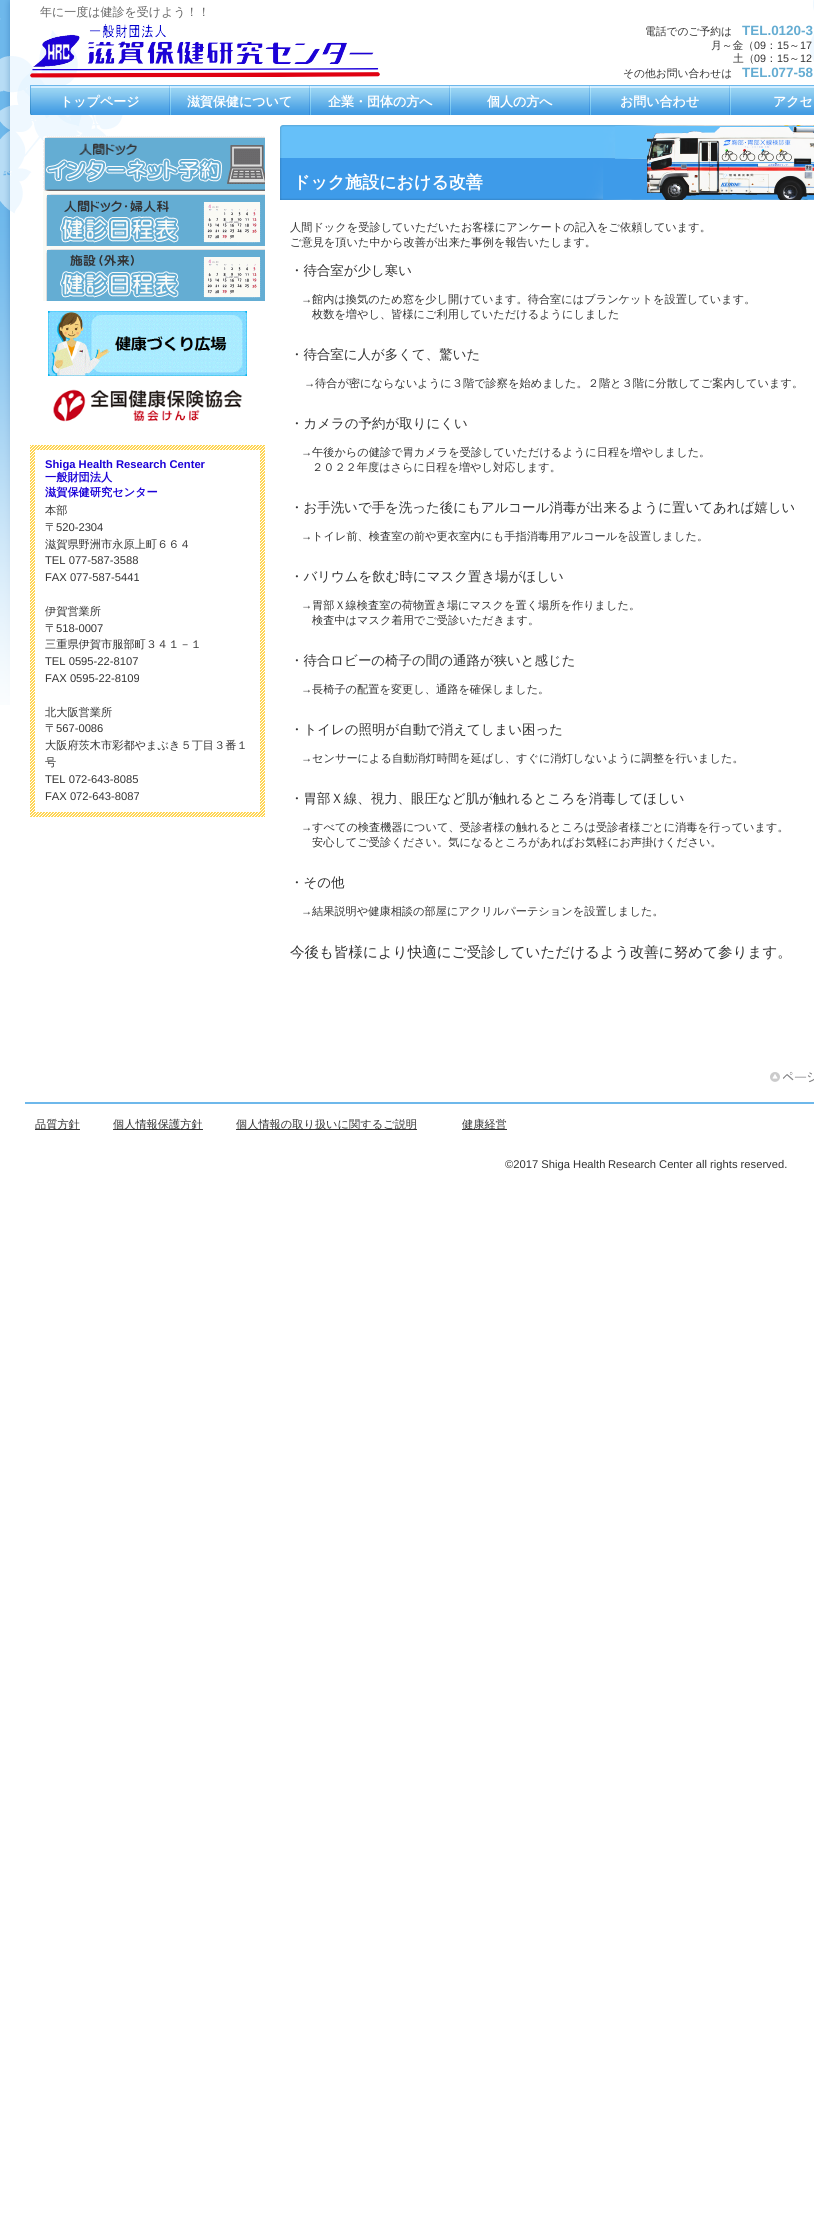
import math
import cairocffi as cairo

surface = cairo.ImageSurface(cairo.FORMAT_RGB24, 814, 2220)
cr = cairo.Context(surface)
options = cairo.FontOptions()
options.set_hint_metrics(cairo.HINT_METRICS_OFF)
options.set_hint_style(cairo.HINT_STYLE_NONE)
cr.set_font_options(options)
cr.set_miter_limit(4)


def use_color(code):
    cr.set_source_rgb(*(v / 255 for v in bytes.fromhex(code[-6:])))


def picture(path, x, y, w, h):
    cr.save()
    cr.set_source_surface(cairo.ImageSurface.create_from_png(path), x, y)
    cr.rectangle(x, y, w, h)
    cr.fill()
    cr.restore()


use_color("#ffffff")
cr.paint()
picture("img1.png", 0, 0, 814, 705)
cr.select_font_face("WenQuanYi Zen Hei Medium")
cr.set_font_size(12)
use_color("#666666")
cr.move_to(40, 16)
cr.show_text("年に一度は健診を受けよう！！")
picture("img2.png", 30, 24, 350, 54)
cr.set_font_size(10.75)
use_color("#333333")
cr.move_to(645, 35)
cr.show_text("電話でのご予約は")
cr.select_font_face("Liberation Sans", cairo.FONT_SLANT_NORMAL, cairo.FONT_WEIGHT_BOLD)
cr.set_font_size(13.45)
use_color("#64acd2")
cr.move_to(742, 35)
cr.show_text("TEL.0120-3")
cr.select_font_face("WenQuanYi Zen Hei Medium")
cr.set_font_size(10.75)
use_color("#333333")
cr.move_to(711, 49)
cr.show_text("月～金（")
cr.select_font_face("Liberation Sans")
cr.move_to(754, 49)
cr.show_text("09")
cr.select_font_face("WenQuanYi Zen Hei Medium")
cr.move_to(766, 49)
cr.show_text("：")
cr.select_font_face("Liberation Sans")
cr.move_to(777, 49)
cr.show_text("15")
cr.select_font_face("WenQuanYi Zen Hei Medium")
cr.move_to(789, 49)
cr.show_text("～")
cr.select_font_face("Liberation Sans")
cr.move_to(800, 49)
cr.show_text("17")
cr.select_font_face("WenQuanYi Zen Hei Medium")
cr.move_to(733, 62)
cr.show_text("土（")
cr.select_font_face("Liberation Sans")
cr.move_to(754, 62)
cr.show_text("09")
cr.select_font_face("WenQuanYi Zen Hei Medium")
cr.move_to(766, 62)
cr.show_text("：")
cr.select_font_face("Liberation Sans")
cr.move_to(777, 62)
cr.show_text("15")
cr.select_font_face("WenQuanYi Zen Hei Medium")
cr.move_to(789, 62)
cr.show_text("～")
cr.select_font_face("Liberation Sans")
cr.move_to(800, 62)
cr.show_text("12")
cr.select_font_face("WenQuanYi Zen Hei Medium")
cr.move_to(623, 77)
cr.show_text("その他お問い合わせは")
cr.select_font_face("Liberation Sans", cairo.FONT_SLANT_NORMAL, cairo.FONT_WEIGHT_BOLD)
cr.set_font_size(13.45)
use_color("#64acd2")
cr.move_to(742, 77)
cr.show_text("TEL.077-58")
picture("img3.png", 30, 85, 140, 30)
cr.select_font_face("WenQuanYi Zen Hei", cairo.FONT_SLANT_NORMAL, cairo.FONT_WEIGHT_BOLD)
cr.set_font_size(13)
use_color("#ffffff")
cr.move_to(60, 106)
cr.show_text("トップページ")
picture("img4.png", 170, 85, 140, 30)
cr.move_to(187, 106)
cr.show_text("滋賀保健について")
picture("img4.png", 310, 85, 140, 30)
cr.move_to(328, 106)
cr.show_text("企業・団体の方へ")
picture("img4.png", 450, 85, 140, 30)
cr.move_to(487, 106)
cr.show_text("個人の方へ")
picture("img4.png", 590, 85, 140, 30)
cr.move_to(620, 106)
cr.show_text("お問い合わせ")
picture("img5.png", 730, 85, 84, 30)
cr.move_to(773, 106)
cr.show_text("アクセ")
picture("img6.png", 43, 136, 222, 55)
picture("img7.png", 43, 191, 222, 55)
picture("img8.png", 43, 246, 222, 55)
picture("img9.png", 48, 311, 199, 65)
picture("img10.png", 53, 389, 190, 33)
picture("img11.png", 30, 445, 235, 372)
cr.rectangle(35, 450, 225, 362)
cr.fill()
cr.select_font_face("Liberation Sans", cairo.FONT_SLANT_NORMAL, cairo.FONT_WEIGHT_BOLD)
cr.set_font_size(11.2)
use_color("#1b01d8")
cr.move_to(45, 468)
cr.show_text("Shiga Health Research Center")
cr.select_font_face("WenQuanYi Zen Hei", cairo.FONT_SLANT_NORMAL, cairo.FONT_WEIGHT_BOLD)
cr.move_to(45, 481)
cr.show_text("一般財団法人")
cr.move_to(45, 496)
cr.show_text("滋賀保健研究センター")
cr.select_font_face("WenQuanYi Zen Hei Medium")
use_color("#333333")
cr.move_to(45, 514)
cr.show_text("本部")
cr.move_to(45, 531)
cr.show_text("〒")
cr.select_font_face("Liberation Sans")
cr.move_to(56, 531)
cr.show_text("520-2304")
cr.select_font_face("WenQuanYi Zen Hei Medium")
cr.move_to(45, 548)
cr.show_text("滋賀県野洲市永原上町６６４")
cr.select_font_face("Liberation Sans")
cr.move_to(45, 564)
cr.show_text("TEL 077-587-3588")
cr.move_to(45, 581)
cr.show_text("FAX 077-587-5441")
cr.select_font_face("WenQuanYi Zen Hei Medium")
cr.move_to(45, 615)
cr.show_text("伊賀営業所")
cr.move_to(45, 632)
cr.show_text("〒")
cr.select_font_face("Liberation Sans")
cr.move_to(56, 632)
cr.show_text("518-0007")
cr.select_font_face("WenQuanYi Zen Hei Medium")
cr.move_to(45, 648)
cr.show_text("三重県伊賀市服部町３４１－１")
cr.select_font_face("Liberation Sans")
cr.move_to(45, 665)
cr.show_text("TEL 0595-22-8107")
cr.move_to(45, 682)
cr.show_text("FAX 0595-22-8109")
cr.select_font_face("WenQuanYi Zen Hei Medium")
cr.move_to(45, 716)
cr.show_text("北大阪営業所")
cr.move_to(45, 732)
cr.show_text("〒")
cr.select_font_face("Liberation Sans")
cr.move_to(56, 732)
cr.show_text("567-0086")
cr.select_font_face("WenQuanYi Zen Hei Medium")
cr.move_to(45, 749)
cr.show_text("大阪府茨木市彩都やまぶき５丁目３番１")
cr.move_to(45, 766)
cr.show_text("号")
cr.select_font_face("Liberation Sans")
cr.move_to(45, 783)
cr.show_text("TEL 072-643-8085")
cr.move_to(45, 800)
cr.show_text("FAX 072-643-8087")
picture("img12.png", 280, 125, 534, 75)
cr.select_font_face("WenQuanYi Zen Hei", cairo.FONT_SLANT_NORMAL, cairo.FONT_WEIGHT_BOLD)
cr.set_font_size(17)
use_color("#ffffff")
cr.move_to(293, 188)
cr.show_text("ドック施設における改善")
cr.select_font_face("WenQuanYi Zen Hei Medium")
cr.set_font_size(11.2)
use_color("#333333")
cr.move_to(290, 231)
cr.show_text("人間ドックを受診していただいたお客様にアンケートの記入をご依頼しています。")
cr.move_to(290, 246)
cr.show_text("ご意見を頂いた中から改善が出来た事例を報告いたします。")
cr.set_font_size(13.45)
cr.move_to(290, 275)
cr.show_text("・待合室が少し寒い")
cr.select_font_face("Liberation Sans")
cr.set_font_size(11.2)
cr.move_to(301, 303)
cr.show_text("→")
cr.select_font_face("WenQuanYi Zen Hei Medium")
cr.move_to(312, 303)
cr.show_text("館内は換気のため窓を少し開けています。待合室にはブランケットを設置しています。")
cr.move_to(312, 318)
cr.show_text("枚数を増やし、皆様にご利用していただけるようにしました")
cr.set_font_size(13.45)
cr.move_to(290, 359)
cr.show_text("・待合室に人が多くて、驚いた")
cr.select_font_face("Liberation Sans")
cr.set_font_size(11.2)
cr.move_to(304, 387)
cr.show_text("→")
cr.select_font_face("WenQuanYi Zen Hei Medium")
cr.move_to(315, 387)
cr.show_text("待合が密にならないように３階で診察を始めました。２階と３階に分散してご案内しています。")
cr.set_font_size(13.45)
cr.move_to(290, 428)
cr.show_text("・カメラの予約が取りにくい")
cr.select_font_face("Liberation Sans")
cr.set_font_size(11.2)
cr.move_to(301, 456)
cr.show_text("→")
cr.select_font_face("WenQuanYi Zen Hei Medium")
cr.move_to(312, 456)
cr.show_text("午後からの健診で胃カメラを受診していただけるように日程を増やしました。")
cr.move_to(312, 471)
cr.show_text("２０２２年度はさらに日程を増やし対応します。")
cr.set_font_size(13.45)
cr.move_to(290, 512)
cr.show_text("・お手洗いで手を洗った後にもアルコール消毒が出来るように置いてあれば嬉しい")
cr.select_font_face("Liberation Sans")
cr.set_font_size(11.2)
cr.move_to(301, 540)
cr.show_text("→")
cr.select_font_face("WenQuanYi Zen Hei Medium")
cr.move_to(312, 540)
cr.show_text("トイレ前、検査室の前や更衣室内にも手指消毒用アルコールを設置しました。")
cr.set_font_size(13.45)
cr.move_to(290, 581)
cr.show_text("・バリウムを飲む時にマスク置き場がほしい")
cr.select_font_face("Liberation Sans")
cr.set_font_size(11.2)
cr.move_to(301, 609)
cr.show_text("→")
cr.select_font_face("WenQuanYi Zen Hei Medium")
cr.move_to(312, 609)
cr.show_text("胃部Ｘ線検査室の荷物置き場にマスクを置く場所を作りました。")
cr.move_to(312, 624)
cr.show_text("検査中はマスク着用でご受診いただきます。")
cr.set_font_size(13.45)
cr.move_to(290, 665)
cr.show_text("・待合ロビーの椅子の間の通路が狭いと感じた")
cr.select_font_face("Liberation Sans")
cr.set_font_size(11.2)
cr.move_to(301, 693)
cr.show_text("→")
cr.select_font_face("WenQuanYi Zen Hei Medium")
cr.move_to(312, 693)
cr.show_text("長椅子の配置を変更し、通路を確保しました。")
cr.set_font_size(13.45)
cr.move_to(290, 734)
cr.show_text("・トイレの照明が自動で消えてしまい困った")
cr.select_font_face("Liberation Sans")
cr.set_font_size(11.2)
cr.move_to(301, 762)
cr.show_text("→")
cr.select_font_face("WenQuanYi Zen Hei Medium")
cr.move_to(312, 762)
cr.show_text("センサーによる自動消灯時間を延ばし、すぐに消灯しないように調整を行いました。")
cr.set_font_size(13.45)
cr.move_to(290, 803)
cr.show_text("・胃部Ｘ線、視力、眼圧など肌が触れるところを消毒してほしい")
cr.select_font_face("Liberation Sans")
cr.set_font_size(11.2)
cr.move_to(301, 831)
cr.show_text("→")
cr.select_font_face("WenQuanYi Zen Hei Medium")
cr.move_to(312, 831)
cr.show_text("すべての検査機器について、受診者様の触れるところは受診者様ごとに消毒を行っています。")
cr.move_to(312, 846)
cr.show_text("安心してご受診ください。気になるところがあればお気軽にお声掛けください。")
cr.set_font_size(13.45)
cr.move_to(290, 887)
cr.show_text("・その他")
cr.select_font_face("Liberation Sans")
cr.set_font_size(11.2)
cr.move_to(301, 915)
cr.show_text("→")
cr.select_font_face("WenQuanYi Zen Hei Medium")
cr.move_to(312, 915)
cr.show_text("結果説明や健康相談の部屋にアクリルパーテションを設置しました。")
cr.set_font_size(14.55)
cr.move_to(290, 957)
cr.show_text("今後も皆様により快適にご受診していただけるよう改善に努めて参ります。")
picture("img13.png", 770, 1071, 44, 12)
use_color("#6eb8eb")
cr.rectangle(25, 1102, 789, 2)
cr.fill()
use_color("#333333")
cr.rectangle(35, 1129, 45, 1)
cr.fill()
cr.set_font_size(11.2)
cr.move_to(35, 1128)
cr.show_text("品質方針")
cr.rectangle(113, 1129, 90, 1)
cr.fill()
cr.move_to(113, 1128)
cr.show_text("個人情報保護方針")
cr.rectangle(236, 1129, 181, 1)
cr.fill()
cr.move_to(236, 1128)
cr.show_text("個人情報の取り扱いに関するご説明")
cr.rectangle(462, 1129, 45, 1)
cr.fill()
cr.move_to(462, 1128)
cr.show_text("健康経営")
cr.select_font_face("Liberation Sans")
cr.move_to(505, 1168)
cr.show_text("©2017 Shiga Health")
cr.move_to(608, 1168)
cr.show_text("Research Center all rights reserved.")
surface.write_to_png("result.png")
